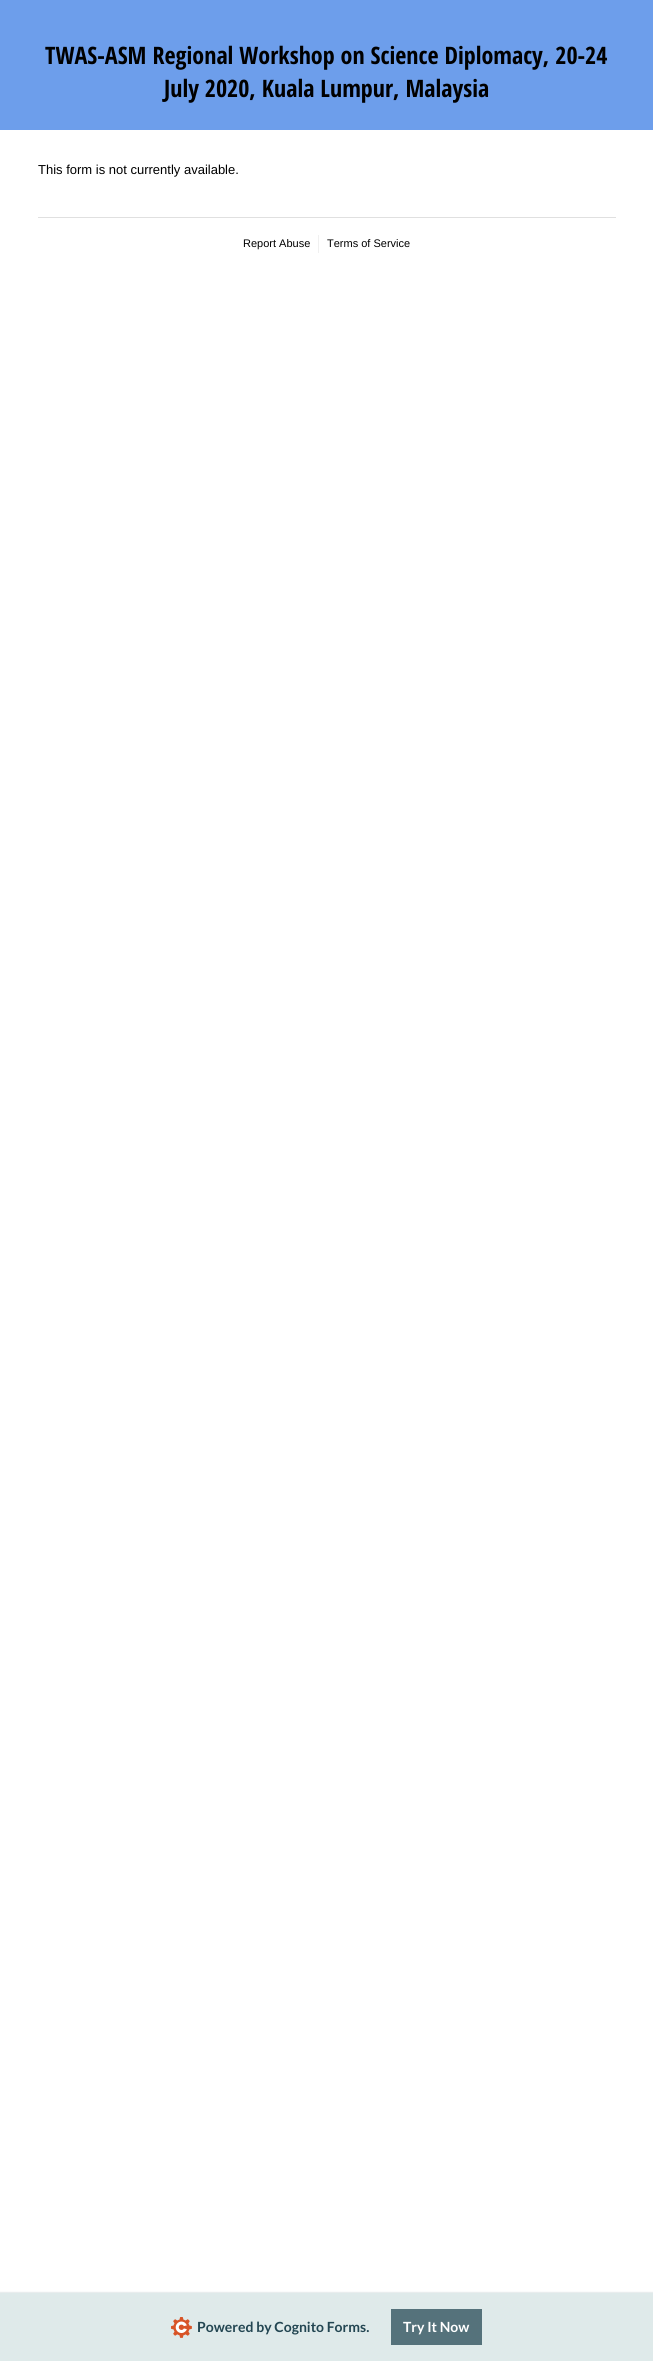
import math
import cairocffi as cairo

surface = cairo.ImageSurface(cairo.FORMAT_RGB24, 653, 2361)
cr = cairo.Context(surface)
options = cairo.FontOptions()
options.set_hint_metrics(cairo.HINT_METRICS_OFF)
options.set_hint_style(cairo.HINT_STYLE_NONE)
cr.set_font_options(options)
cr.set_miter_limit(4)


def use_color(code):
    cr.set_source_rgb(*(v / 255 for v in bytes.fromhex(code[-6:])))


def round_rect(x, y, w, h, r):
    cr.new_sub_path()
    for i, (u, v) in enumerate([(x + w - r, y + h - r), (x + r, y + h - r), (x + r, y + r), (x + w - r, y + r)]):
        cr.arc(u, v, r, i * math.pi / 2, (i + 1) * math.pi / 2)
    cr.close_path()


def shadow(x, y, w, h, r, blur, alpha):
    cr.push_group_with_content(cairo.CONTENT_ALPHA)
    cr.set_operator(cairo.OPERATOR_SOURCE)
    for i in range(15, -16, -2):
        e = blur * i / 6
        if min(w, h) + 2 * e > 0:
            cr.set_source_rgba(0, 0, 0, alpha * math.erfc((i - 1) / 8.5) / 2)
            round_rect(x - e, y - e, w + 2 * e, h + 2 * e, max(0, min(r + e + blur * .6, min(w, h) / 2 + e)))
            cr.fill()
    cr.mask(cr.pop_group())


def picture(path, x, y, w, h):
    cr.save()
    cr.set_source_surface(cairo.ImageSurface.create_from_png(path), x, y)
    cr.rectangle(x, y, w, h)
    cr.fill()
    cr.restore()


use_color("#ffffff")
cr.paint()
use_color("#6d9eeb")
cr.rectangle(0, 0, 653, 130)
cr.fill()
cr.select_font_face("Open Sans Condensed", cairo.FONT_SLANT_NORMAL, cairo.FONT_WEIGHT_BOLD)
cr.set_font_size(24.05)
use_color("#000000")
cr.move_to(45, 64)
cr.show_text("TWAS-ASM Regional Workshop on Science Diplomacy, 20-24")
cr.move_to(164, 97)
cr.show_text("July 2020, Kuala Lumpur, Malaysia")
cr.select_font_face("Liberation Sans")
cr.set_font_size(13)
cr.move_to(38, 174)
cr.show_text("This form is not currently available.")
use_color("#e0e0e0")
cr.rectangle(38, 217, 578, 1)
cr.fill()
cr.set_font_size(11)
use_color("#000000")
cr.move_to(243, 247)
cr.show_text("Report Abuse")
use_color("#f0f0f0")
cr.rectangle(318, 235, 1, 18)
cr.fill()
use_color("#000000")
cr.move_to(327, 247)
cr.show_text("Terms of Service")
use_color("#55727b")
shadow(0, 2293, 653, 68, 0, 1, 0.4)
use_color("#dfeaea")
cr.rectangle(0, 2293, 653, 68)
cr.fill()
picture("img1.png", 171, 2317, 21, 21)
cr.select_font_face("Lato", cairo.FONT_SLANT_NORMAL, cairo.FONT_WEIGHT_BOLD)
cr.set_font_size(14)
use_color("#234652")
cr.move_to(197, 2332)
cr.show_text("Powered by Cognito Forms.")
use_color("#55727b")
cr.rectangle(391, 2309, 91, 36)
cr.fill()
use_color("#ffffff")
cr.move_to(403, 2332)
cr.show_text("Try It Now")
surface.write_to_png("result.png")
